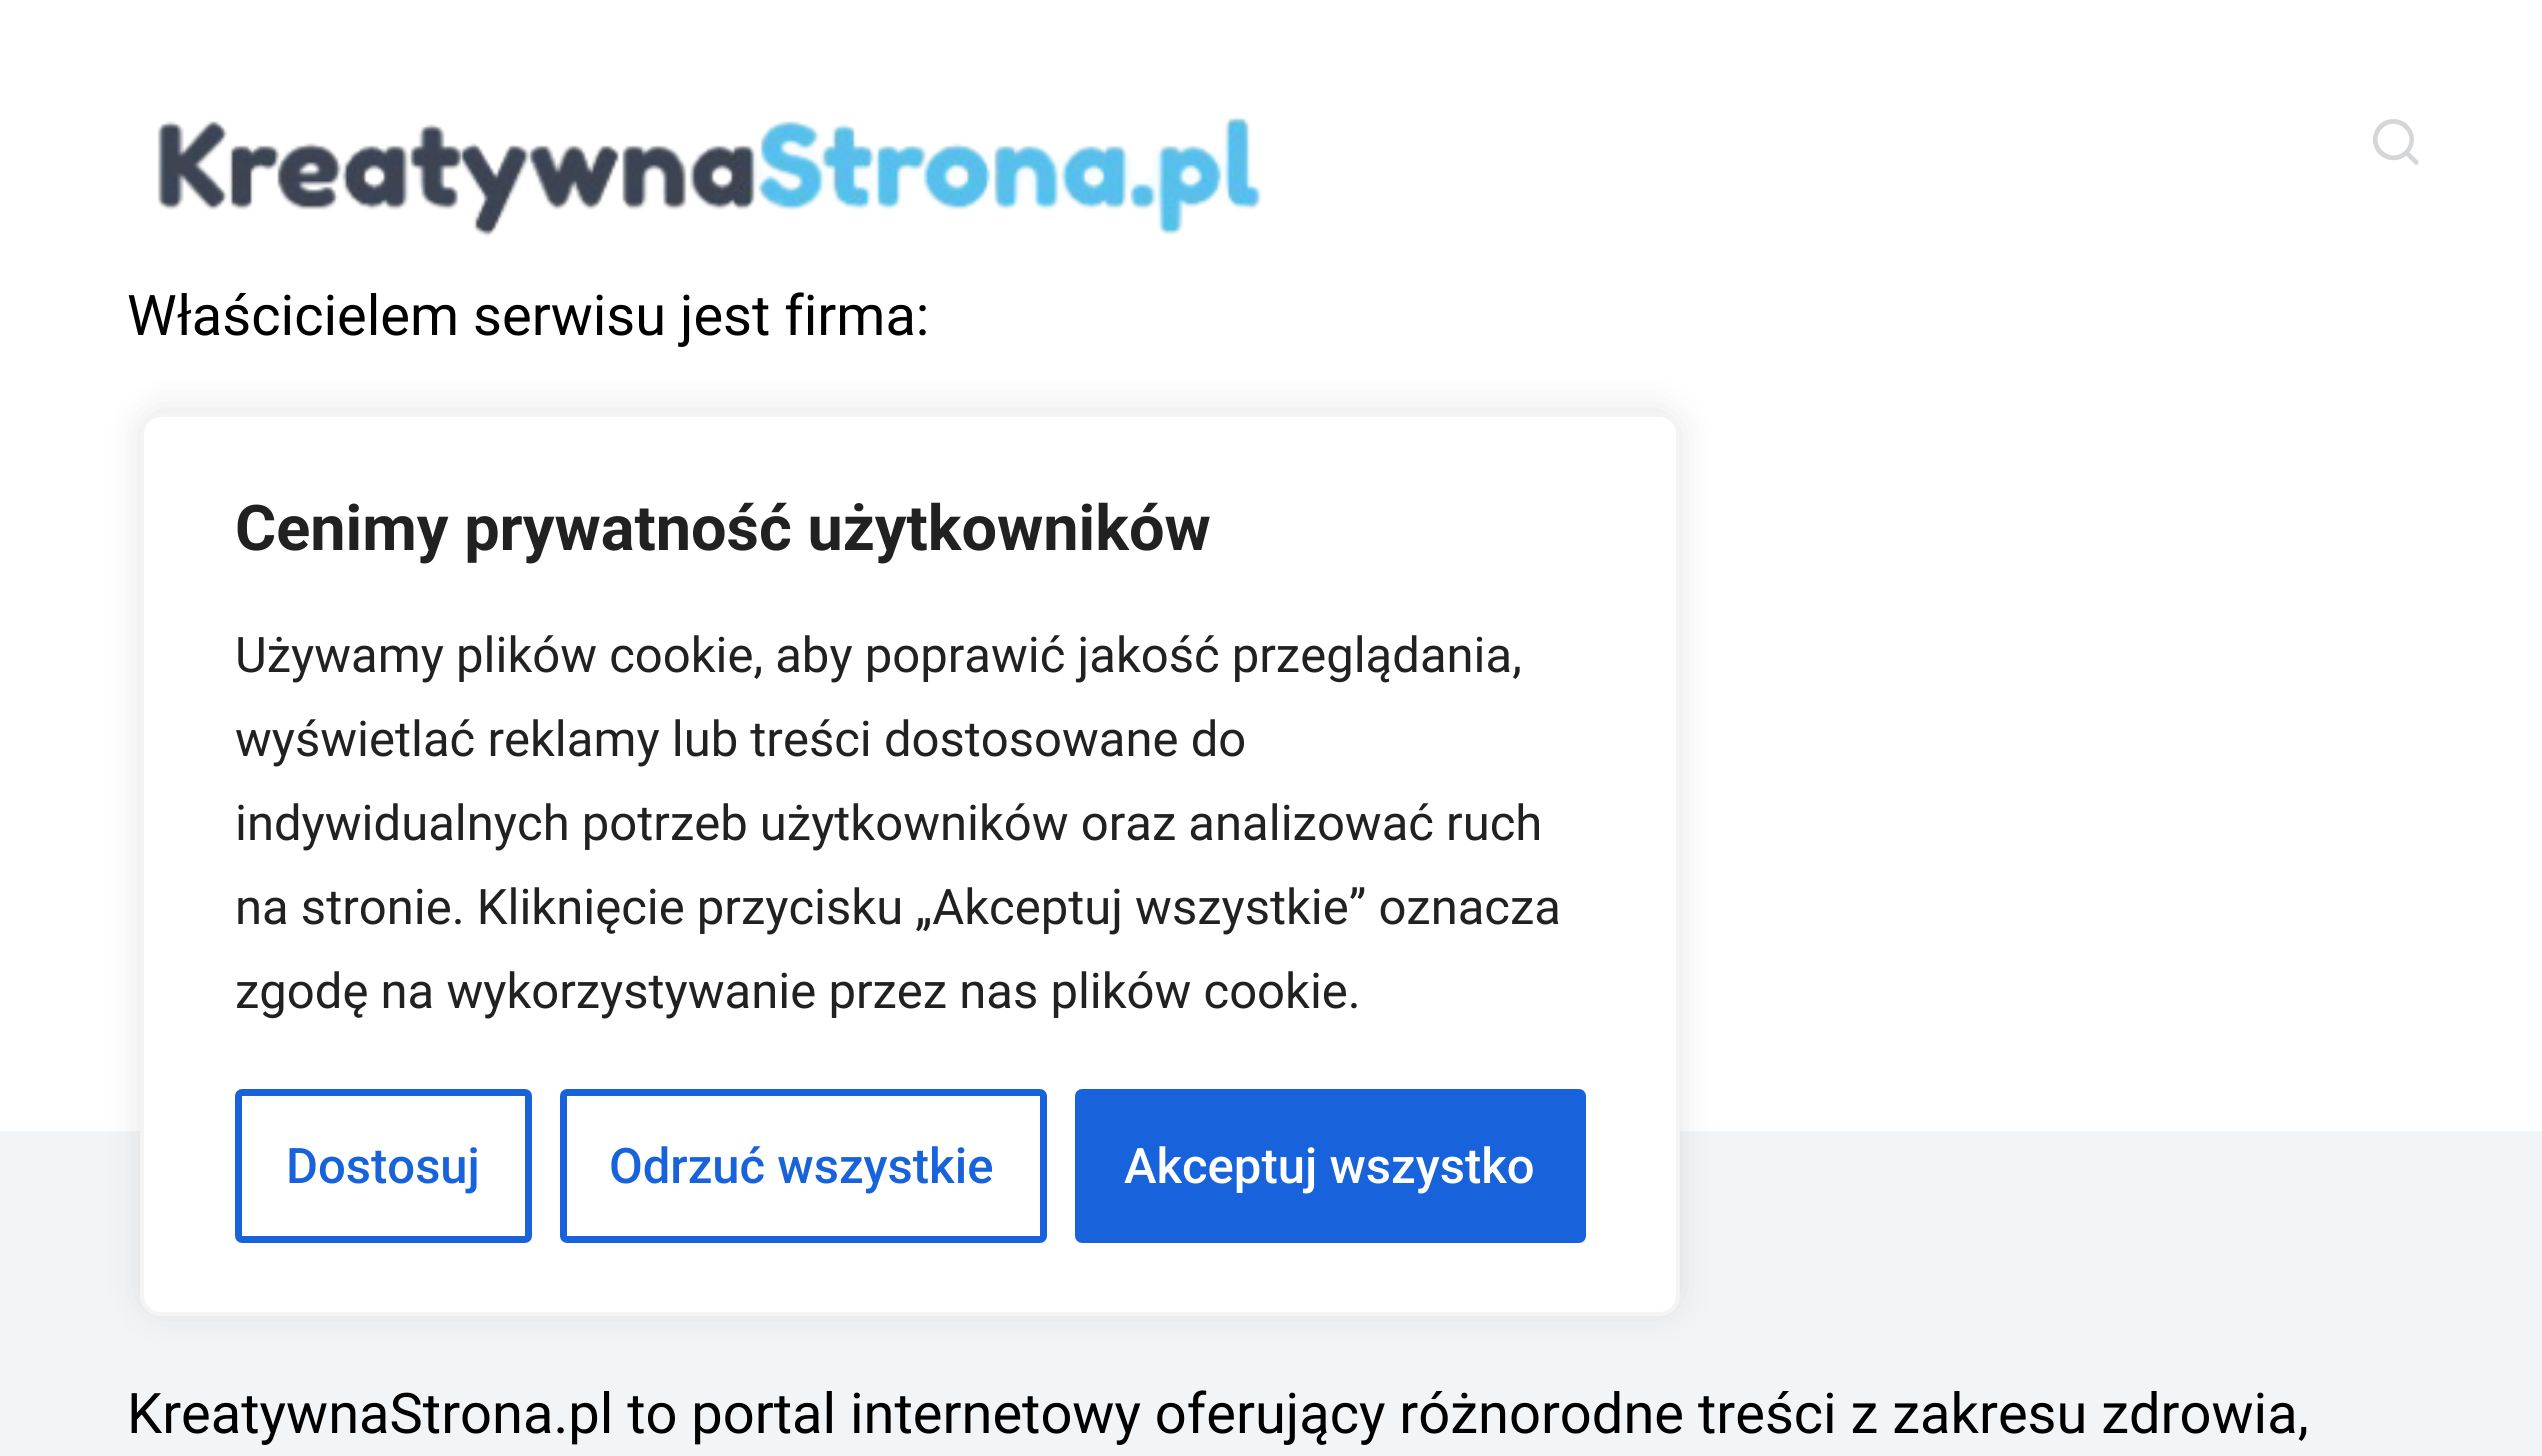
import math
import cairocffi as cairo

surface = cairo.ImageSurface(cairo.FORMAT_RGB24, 2542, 1456)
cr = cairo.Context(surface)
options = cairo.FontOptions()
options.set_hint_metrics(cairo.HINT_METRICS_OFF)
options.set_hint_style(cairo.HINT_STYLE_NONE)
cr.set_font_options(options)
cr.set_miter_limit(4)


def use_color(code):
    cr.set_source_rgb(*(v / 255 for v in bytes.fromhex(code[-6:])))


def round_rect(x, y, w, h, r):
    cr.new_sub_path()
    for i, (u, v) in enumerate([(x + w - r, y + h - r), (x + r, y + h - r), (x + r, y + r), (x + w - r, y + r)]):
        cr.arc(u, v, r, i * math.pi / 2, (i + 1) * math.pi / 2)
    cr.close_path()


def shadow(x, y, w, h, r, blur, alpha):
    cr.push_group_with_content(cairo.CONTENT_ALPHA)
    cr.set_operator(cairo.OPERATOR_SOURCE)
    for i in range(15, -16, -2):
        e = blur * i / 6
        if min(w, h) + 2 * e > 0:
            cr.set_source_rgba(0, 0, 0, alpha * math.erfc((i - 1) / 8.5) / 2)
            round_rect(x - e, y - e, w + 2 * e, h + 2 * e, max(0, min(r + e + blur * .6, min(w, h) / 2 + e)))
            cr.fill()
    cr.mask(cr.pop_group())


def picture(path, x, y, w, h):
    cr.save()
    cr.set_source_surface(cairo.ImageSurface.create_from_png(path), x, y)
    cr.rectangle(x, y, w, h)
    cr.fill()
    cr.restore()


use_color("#ffffff")
cr.paint()
picture("img1.png", 157, 116, 1105, 121)
picture("img2.png", 2373, 119, 46, 46)
cr.select_font_face("Roboto")
cr.set_font_size(56)
use_color("#000000")
cr.move_to(127, 335)
cr.show_text("Właścicielem serwisu jest firma:")
use_color("#f2f5f7")
cr.rectangle(0, 1131, 2542, 325)
cr.fill()
use_color("#000000")
cr.move_to(127, 1433)
cr.show_text("KreatywnaStrona.pl to portal internetowy oferujący różnorodne treści z zakresu zdrowia,")
use_color("#acabab")
shadow(140, 410, 1540, 903, 21, 17.5, 0.3)
use_color("#ffffff")
round_rect(142, 415, 1536, 899, 19)
cr.fill_preserve()
use_color("#f4f4f4")
cr.set_line_width(4)
cr.stroke()
cr.select_font_face("Roboto", cairo.FONT_SLANT_NORMAL, cairo.FONT_WEIGHT_BOLD)
cr.set_font_size(63)
use_color("#212121")
cr.move_to(235, 550)
cr.show_text("Cenimy prywatność użytkowników")
cr.select_font_face("Roboto")
cr.set_font_size(49)
cr.move_to(235, 672)
cr.show_text("Używamy plików cookie, aby poprawić jakość przeglądania,")
cr.move_to(235, 756)
cr.show_text("wyświetlać reklamy lub treści dostosowane do")
cr.move_to(235, 840)
cr.show_text("indywidualnych potrzeb użytkowników oraz analizować ruch")
cr.move_to(235, 924)
cr.show_text("na stronie. Kliknięcie przycisku „Akceptuj wszystkie” oznacza")
cr.move_to(235, 1008)
cr.show_text("zgodę na wykorzystywanie przez nas plików cookie.")
round_rect(238.5, 1092.5, 290, 147, 3.5)
use_color("#1863dc")
cr.set_line_width(7)
cr.stroke()
cr.select_font_face("Roboto Medium")
cr.move_to(286, 1183)
cr.show_text("Dostosuj")
round_rect(563.5, 1092.5, 480, 147, 3.5)
cr.stroke()
cr.move_to(609, 1183)
cr.show_text("Odrzuć wszystkie")
round_rect(1078.5, 1092.5, 504, 147, 3.5)
cr.fill_preserve()
cr.stroke()
use_color("#ffffff")
cr.move_to(1124, 1183)
cr.show_text("Akceptuj wszystko")
surface.write_to_png("result.png")
